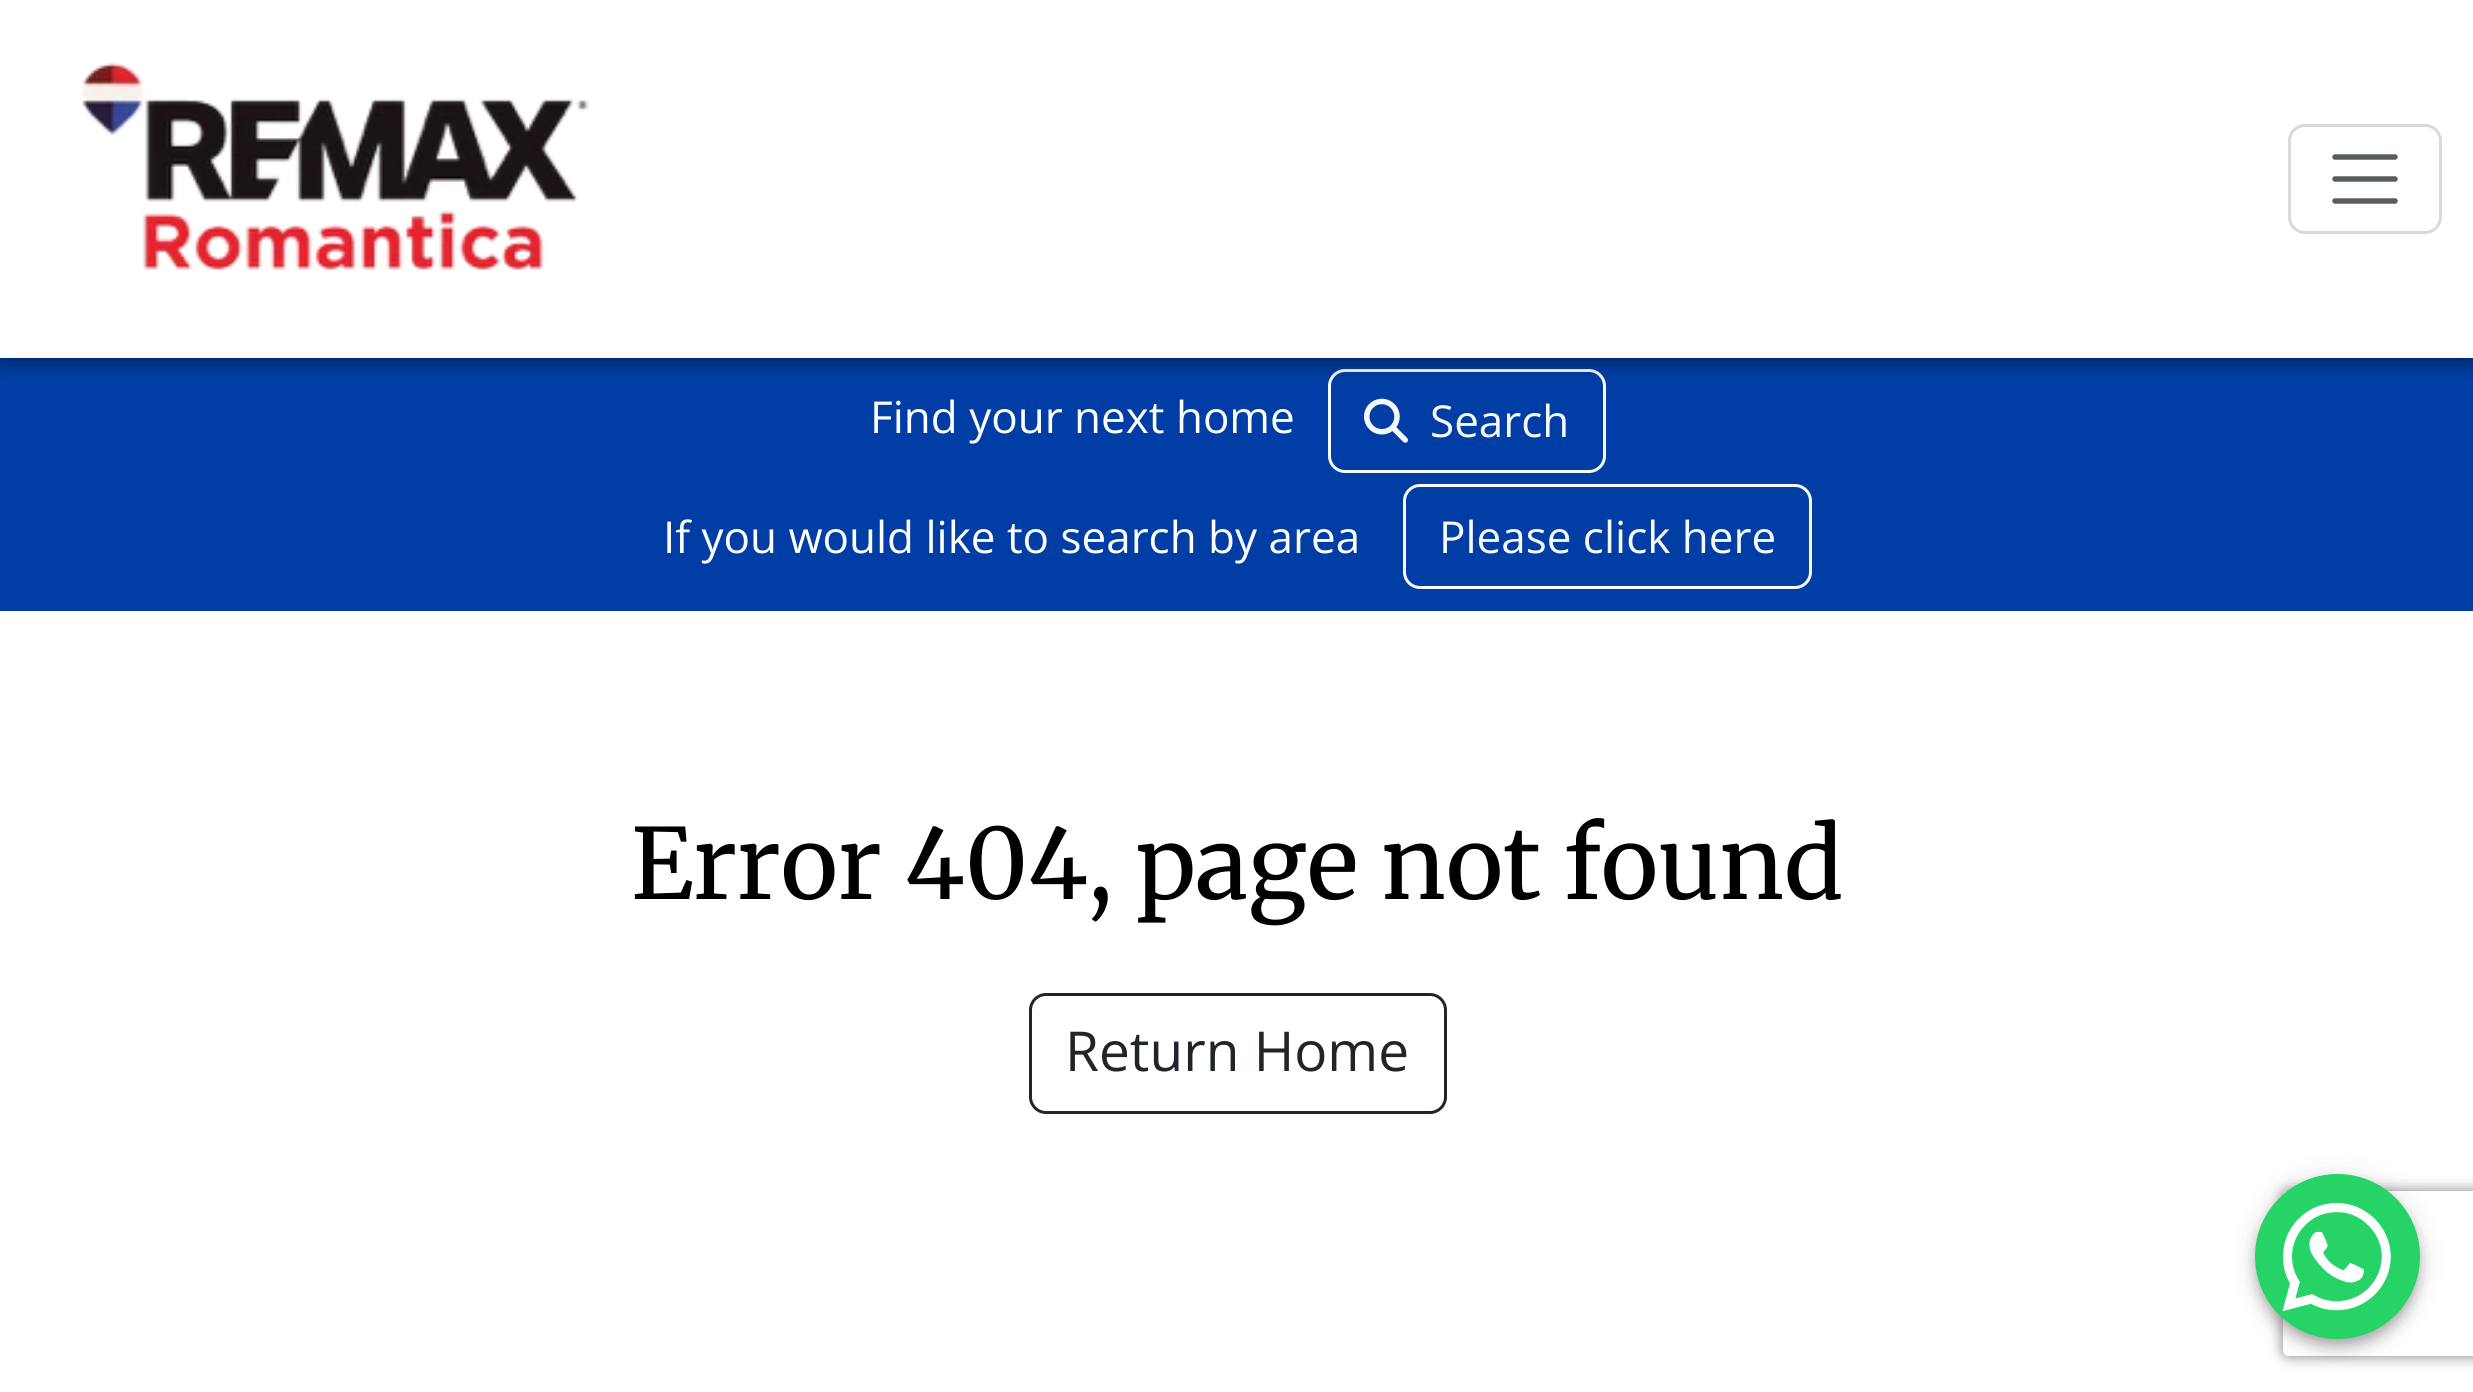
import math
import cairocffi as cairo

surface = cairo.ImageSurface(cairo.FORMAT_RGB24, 2473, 1392)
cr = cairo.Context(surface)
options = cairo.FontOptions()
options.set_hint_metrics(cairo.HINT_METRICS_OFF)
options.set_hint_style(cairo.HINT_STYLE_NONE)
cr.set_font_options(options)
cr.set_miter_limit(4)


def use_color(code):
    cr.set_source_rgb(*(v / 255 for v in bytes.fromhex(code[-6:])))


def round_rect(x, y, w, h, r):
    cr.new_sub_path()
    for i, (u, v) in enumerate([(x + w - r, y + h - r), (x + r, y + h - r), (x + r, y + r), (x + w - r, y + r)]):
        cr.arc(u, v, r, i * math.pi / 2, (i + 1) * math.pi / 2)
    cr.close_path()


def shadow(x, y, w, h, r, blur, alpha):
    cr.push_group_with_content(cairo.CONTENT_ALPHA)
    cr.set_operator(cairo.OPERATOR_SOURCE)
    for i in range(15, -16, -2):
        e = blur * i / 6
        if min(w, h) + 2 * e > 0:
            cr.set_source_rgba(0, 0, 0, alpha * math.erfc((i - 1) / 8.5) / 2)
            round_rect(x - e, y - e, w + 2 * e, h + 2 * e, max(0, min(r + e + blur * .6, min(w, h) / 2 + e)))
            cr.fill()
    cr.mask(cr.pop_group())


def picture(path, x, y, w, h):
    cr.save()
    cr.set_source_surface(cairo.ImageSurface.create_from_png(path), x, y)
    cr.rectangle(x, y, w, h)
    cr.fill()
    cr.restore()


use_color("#ffffff")
cr.paint()
use_color("#003ea5")
cr.rectangle(0, 358, 2473, 253)
cr.fill()
round_rect(1329.5, 370.5, 275, 101, 15.5)
use_color("#f8f9fa")
cr.set_line_width(3)
cr.stroke()
picture("img2.png", 1364, 398, 44, 45)
use_color("#000000")
shadow(0, 3, 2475, 357, 0, 14, 0.12)
shadow(0, 11, 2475, 358, 0, 7, 0.14)
shadow(3, 8, 2469, 352, 0, 5.5, 0.2)
use_color("#ffffff")
cr.rectangle(0, 0, 2473, 358)
cr.fill()
picture("img1.png", 81, 62, 509, 208)
round_rect(2289.5, 125.5, 151, 107, 15.5)
use_color("#d9d9d9")
cr.stroke()
cr.new_path()
cr.move_to(2335, 157)
cr.line_to(2395, 157)
cr.move_to(2335, 179)
cr.line_to(2395, 179)
cr.move_to(2335, 201)
cr.line_to(2395, 201)
use_color("#595c5f")
cr.set_line_width(5.5)
cr.set_line_cap(cairo.LINE_CAP_ROUND)
cr.stroke()
cr.select_font_face("Open Sans")
cr.set_font_size(44)
use_color("#ffffff")
cr.move_to(870, 433)
cr.show_text("Find your next home")
use_color("#f8f9fa")
cr.move_to(1430, 437)
cr.show_text("Search")
use_color("#ffffff")
cr.move_to(663, 553)
cr.show_text("If you would like to search by area")
round_rect(1404.5, 485.5, 406, 102, 15.5)
use_color("#f8f9fa")
cr.set_line_width(3)
cr.set_line_cap(cairo.LINE_CAP_BUTT)
cr.stroke()
cr.move_to(1439, 553)
cr.show_text("Please click here")
cr.select_font_face("Merriweather")
cr.set_font_size(97.6)
use_color("#000000")
cr.move_to(631, 899)
cr.show_text("Error 404, page not found")
round_rect(1030.5, 994.5, 415, 118, 15.5)
use_color("#212529")
cr.stroke()
cr.select_font_face("Open Sans")
cr.set_font_size(55)
cr.move_to(1065, 1071)
cr.show_text("Return Home")
use_color("#000000")
shadow(2255, 1177, 165, 165, 82.5, 14, 0.12)
shadow(2255, 1185, 165, 165, 82.5, 7, 0.14)
shadow(2258, 1183, 159, 159, 79.5, 5.5, 0.2)
cr.save()
cr.set_fill_rule(cairo.FILL_RULE_EVEN_ODD)
cr.new_path()
cr.move_to(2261, 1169)
cr.line_to(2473, 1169)
cr.line_to(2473, 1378)
cr.line_to(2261, 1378)
cr.close_path()
cr.move_to(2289, 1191)
cr.line_to(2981, 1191)
cr.curve_to(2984.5, 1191, 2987, 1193.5, 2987, 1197)
cr.line_to(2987, 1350)
cr.curve_to(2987, 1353.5, 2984.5, 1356, 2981, 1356)
cr.line_to(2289, 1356)
cr.curve_to(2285.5, 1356, 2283, 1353.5, 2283, 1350)
cr.line_to(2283, 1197)
cr.curve_to(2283, 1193.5, 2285.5, 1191, 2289, 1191)
cr.close_path()
cr.clip()
use_color("#808080")
shadow(2283, 1191, 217, 165, 6, 7, 1)
cr.restore()
use_color("#25d366")
cr.arc(2337.5, 1256.5, 82.5, 0, 2 * math.pi)
cr.fill()
picture("img3.png", 2282, 1202, 109, 110)
surface.write_to_png("result.png")
